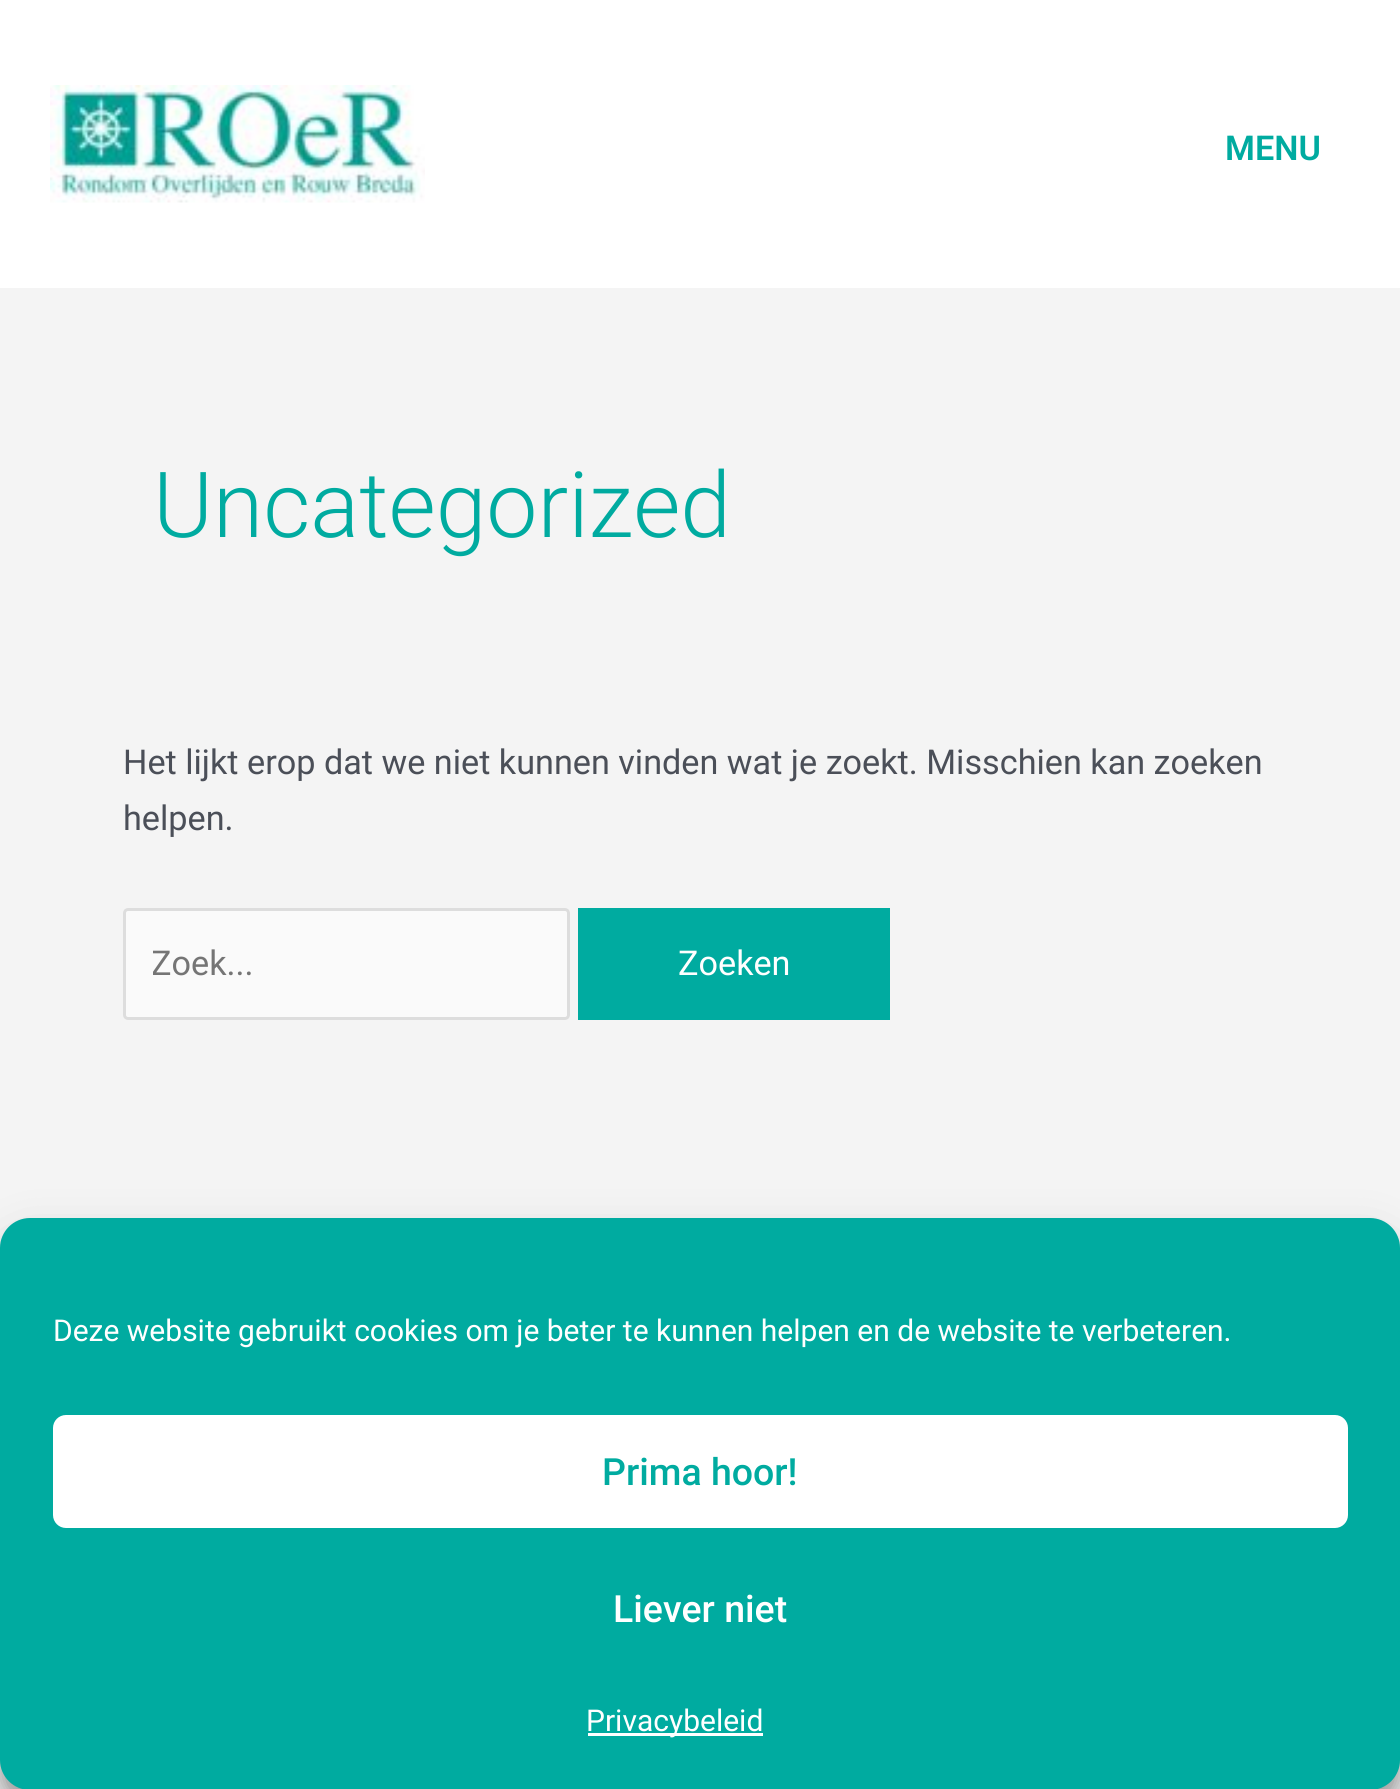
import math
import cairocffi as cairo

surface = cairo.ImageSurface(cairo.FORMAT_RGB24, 1400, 1789)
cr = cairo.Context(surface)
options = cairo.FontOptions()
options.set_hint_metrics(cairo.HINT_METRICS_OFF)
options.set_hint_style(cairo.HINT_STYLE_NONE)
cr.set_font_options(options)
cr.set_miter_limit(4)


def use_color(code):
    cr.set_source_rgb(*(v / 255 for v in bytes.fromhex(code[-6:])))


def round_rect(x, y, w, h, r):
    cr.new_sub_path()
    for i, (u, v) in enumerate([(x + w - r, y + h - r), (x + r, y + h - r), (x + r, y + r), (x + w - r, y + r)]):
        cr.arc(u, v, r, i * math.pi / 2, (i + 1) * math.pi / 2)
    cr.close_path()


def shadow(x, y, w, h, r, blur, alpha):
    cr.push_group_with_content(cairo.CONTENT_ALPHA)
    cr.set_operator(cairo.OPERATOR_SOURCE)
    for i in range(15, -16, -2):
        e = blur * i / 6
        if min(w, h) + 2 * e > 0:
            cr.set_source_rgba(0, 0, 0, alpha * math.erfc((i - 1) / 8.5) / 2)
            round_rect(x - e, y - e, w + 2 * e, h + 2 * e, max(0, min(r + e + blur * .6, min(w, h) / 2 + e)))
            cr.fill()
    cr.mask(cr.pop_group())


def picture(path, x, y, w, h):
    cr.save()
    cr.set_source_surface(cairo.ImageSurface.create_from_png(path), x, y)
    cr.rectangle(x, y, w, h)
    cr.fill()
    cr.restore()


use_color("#f4f4f4")
cr.paint()
use_color("#ffffff")
cr.rectangle(0, 0, 1400, 288)
cr.fill()
picture("img1.png", 50, 85, 375, 118)
cr.select_font_face("Roboto SemiBold")
cr.set_font_size(34.2)
use_color("#00aba0")
cr.move_to(1225, 160)
cr.show_text("MENU")
cr.select_font_face("Roboto Light")
cr.set_font_size(91.25)
cr.move_to(153, 537)
cr.show_text("Uncategorized")
cr.select_font_face("Roboto")
cr.set_font_size(34.2)
use_color("#4b4f58")
cr.move_to(123, 774)
cr.show_text("Het lijkt erop dat we niet kunnen vinden wat je zoekt. Misschien kan zoeken")
cr.move_to(123, 830)
cr.show_text("helpen.")
use_color("#fafafa")
round_rect(124.5, 909.5, 444, 109, 3.5)
cr.fill_preserve()
use_color("#dddddd")
cr.set_line_width(3)
cr.stroke()
cr.save()
cr.rectangle(153, 943, 380, 40)
cr.clip()
use_color("#757575")
cr.move_to(151, 975)
cr.show_text("Zoek...")
cr.restore()
use_color("#00aba0")
cr.rectangle(578, 908, 312, 112)
cr.fill()
use_color("#ffffff")
cr.move_to(678, 975)
cr.show_text("Zoeken")
use_color("#000000")
shadow(0, 1233, 1400, 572, 30, 7.5, 0.23)
shadow(0, 1243, 1400, 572, 30, 25, 0.19)
use_color("#00aba0")
round_rect(1.5, 1219.5, 1397, 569, 28.5)
cr.fill_preserve()
cr.stroke()
cr.set_font_size(30)
use_color("#ffffff")
cr.move_to(53, 1341)
cr.show_text("Deze website gebruikt cookies om je beter te kunnen helpen en de website te verbeteren.")
round_rect(54.5, 1416.5, 1292, 110, 11.5)
cr.fill_preserve()
cr.stroke()
cr.select_font_face("Roboto Medium")
cr.set_font_size(37.5)
use_color("#00aba0")
cr.move_to(602, 1485)
cr.show_text("Prima hoor!")
use_color("#ffffff")
cr.move_to(613, 1622)
cr.show_text("Liever niet")
cr.rectangle(588, 1733, 175, 3)
cr.fill()
cr.select_font_face("Roboto")
cr.set_font_size(30)
cr.move_to(586, 1731)
cr.show_text("Privacybeleid")
surface.write_to_png("result.png")
